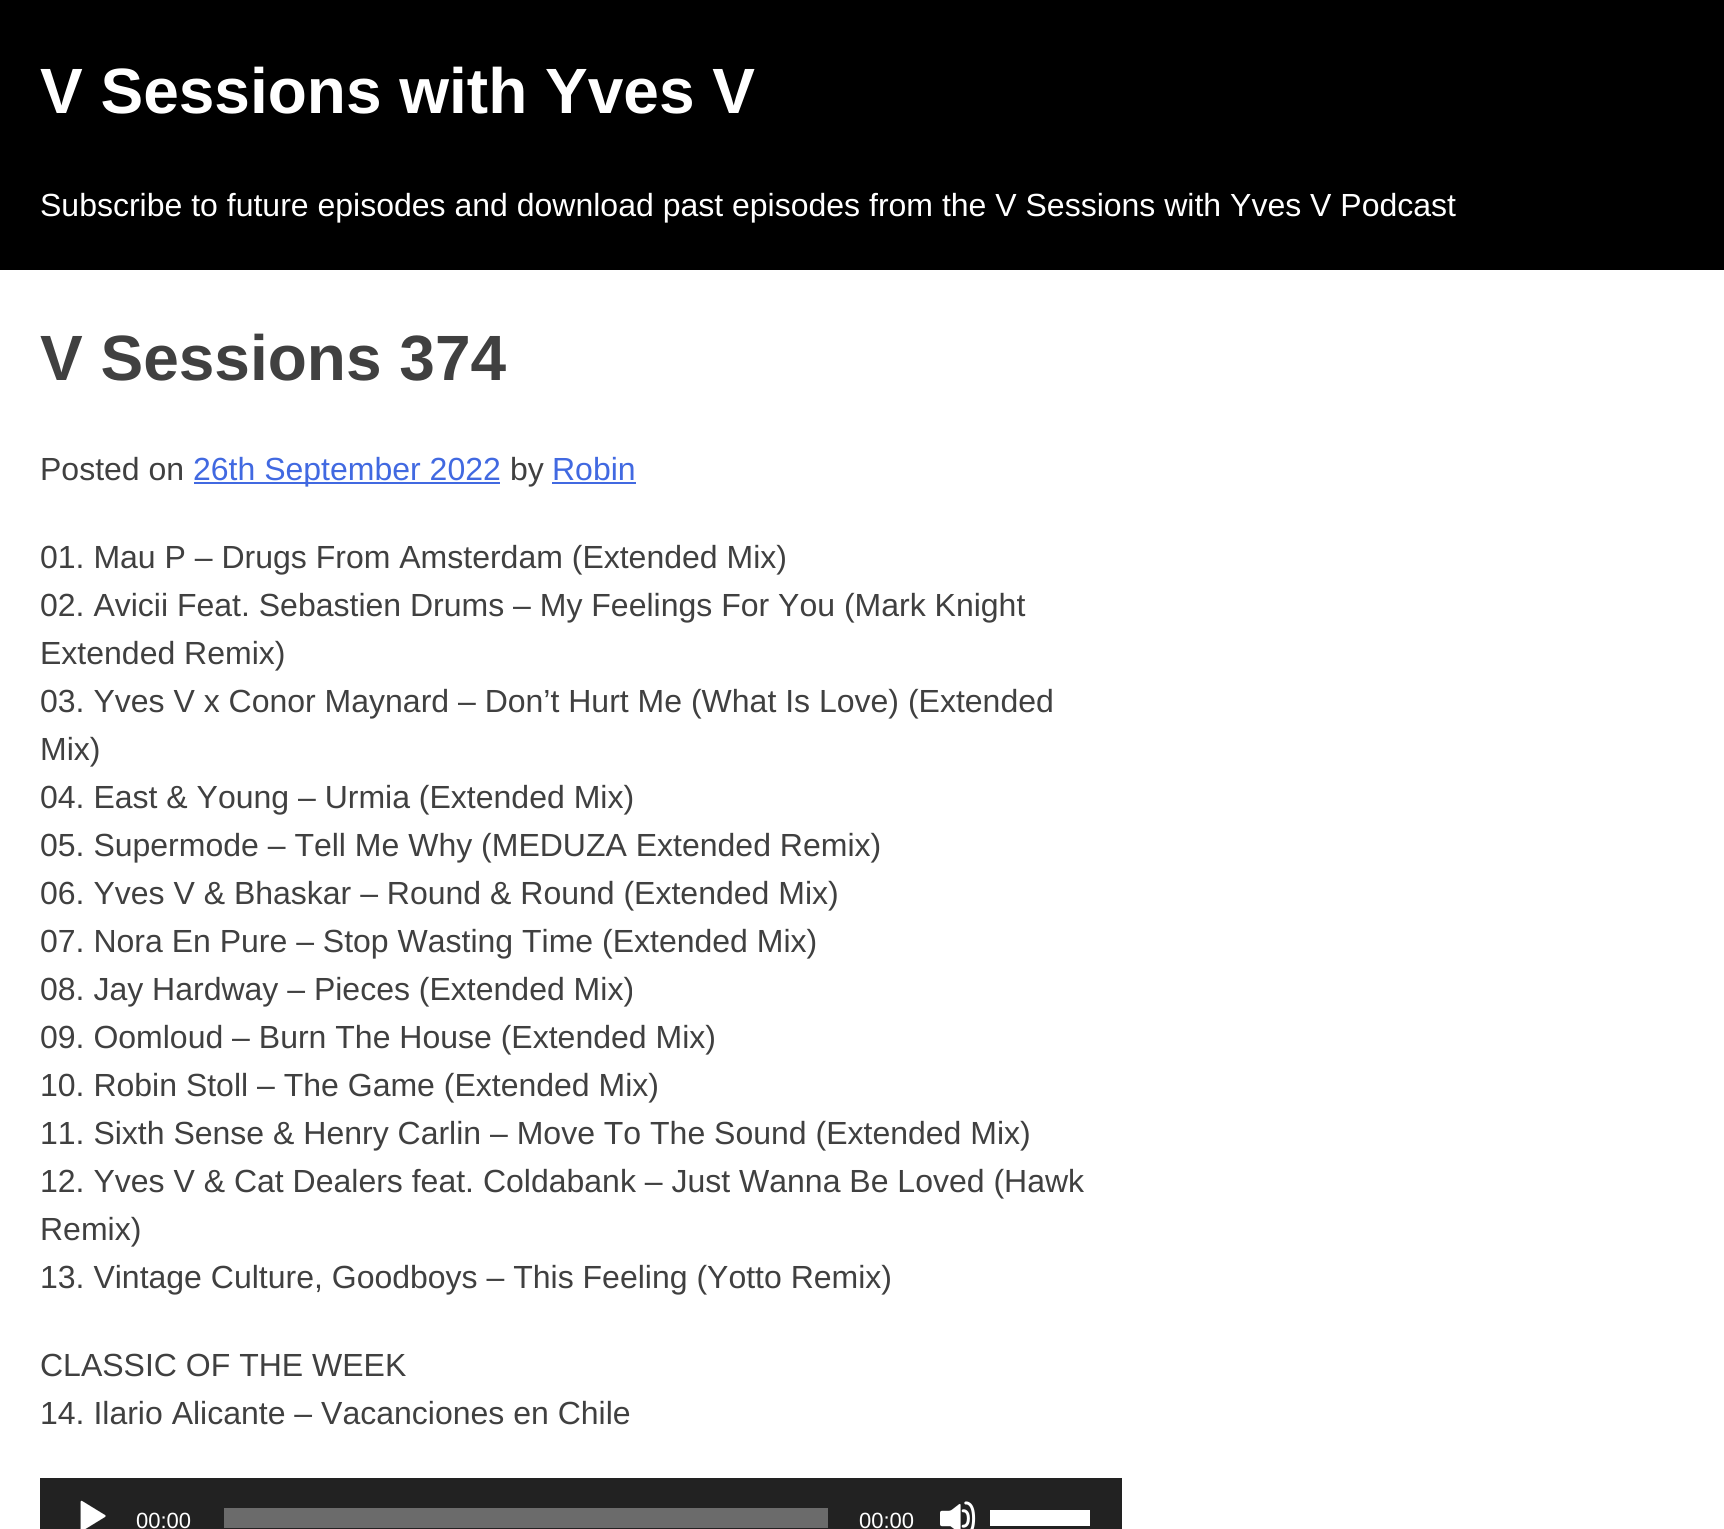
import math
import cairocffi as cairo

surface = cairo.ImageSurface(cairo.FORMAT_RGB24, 1724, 1529)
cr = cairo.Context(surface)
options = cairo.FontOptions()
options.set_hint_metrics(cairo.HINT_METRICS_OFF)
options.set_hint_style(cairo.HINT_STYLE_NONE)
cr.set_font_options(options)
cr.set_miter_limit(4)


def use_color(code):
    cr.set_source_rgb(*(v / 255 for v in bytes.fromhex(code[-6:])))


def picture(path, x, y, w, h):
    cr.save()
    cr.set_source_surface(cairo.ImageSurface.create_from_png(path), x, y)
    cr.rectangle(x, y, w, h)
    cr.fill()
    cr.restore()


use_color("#ffffff")
cr.paint()
use_color("#000000")
cr.rectangle(0, 0, 1724, 270)
cr.fill()
cr.select_font_face("Liberation Sans", cairo.FONT_SLANT_NORMAL, cairo.FONT_WEIGHT_BOLD)
cr.set_font_size(64)
use_color("#ffffff")
cr.move_to(40, 113)
cr.show_text("V Sessions with Yves V")
cr.select_font_face("Liberation Sans")
cr.set_font_size(32)
cr.move_to(40, 216)
cr.show_text("Subscribe to future episodes and download past episodes from the V Sessions with Yves V Podcast")
cr.select_font_face("Liberation Sans", cairo.FONT_SLANT_NORMAL, cairo.FONT_WEIGHT_BOLD)
cr.set_font_size(64)
use_color("#404040")
cr.move_to(40, 380)
cr.show_text("V Sessions 374")
cr.select_font_face("Liberation Sans")
cr.set_font_size(32)
cr.move_to(40, 480)
cr.show_text("Posted on")
use_color("#4169e1")
cr.rectangle(194, 482, 306, 2)
cr.fill()
cr.move_to(193, 480)
cr.show_text("26th September 2022")
use_color("#404040")
cr.move_to(510, 480)
cr.show_text("by")
use_color("#4169e1")
cr.move_to(552, 480)
cr.show_text("Robin")
cr.rectangle(552, 482, 84, 2)
cr.fill()
use_color("#404040")
cr.move_to(40, 568)
cr.show_text("01. Mau P – Drugs From Amsterdam (Extended Mix)")
cr.move_to(40, 616)
cr.show_text("02. Avicii Feat. Sebastien Drums – My Feelings For You (Mark Knight")
cr.move_to(40, 664)
cr.show_text("Extended Remix)")
cr.move_to(40, 712)
cr.show_text("03. Yves V x Conor Maynard – Don’t Hurt Me (What Is Love) (Extended")
cr.move_to(40, 760)
cr.show_text("Mix)")
cr.move_to(40, 808)
cr.show_text("04. East & Young – Urmia (Extended Mix)")
cr.move_to(40, 856)
cr.show_text("05. Supermode – Tell Me Why (MEDUZA Extended Remix)")
cr.move_to(40, 904)
cr.show_text("06. Yves V & Bhaskar – Round & Round (Extended Mix)")
cr.move_to(40, 952)
cr.show_text("07. Nora En Pure – Stop Wasting Time (Extended Mix)")
cr.move_to(40, 1000)
cr.show_text("08. Jay Hardway – Pieces (Extended Mix)")
cr.move_to(40, 1048)
cr.show_text("09. Oomloud – Burn The House (Extended Mix)")
cr.move_to(40, 1096)
cr.show_text("10. Robin Stoll – The Game (Extended Mix)")
cr.move_to(40, 1144)
cr.show_text("11. Sixth Sense & Henry Carlin – Move To The Sound (Extended Mix)")
cr.move_to(40, 1192)
cr.show_text("12. Yves V & Cat Dealers feat. Coldabank – Just Wanna Be Loved (Hawk")
cr.move_to(40, 1240)
cr.show_text("Remix)")
cr.move_to(40, 1288)
cr.show_text("13. Vintage Culture, Goodboys – This Feeling (Yotto Remix)")
cr.move_to(40, 1376)
cr.show_text("CLASSIC OF THE WEEK")
cr.move_to(40, 1424)
cr.show_text("14. Ilario Alicante – Vacanciones en Chile")
use_color("#222222")
cr.rectangle(40, 1478, 1082, 51)
cr.fill()
picture("img1.png", 80, 1500, 26, 29)
cr.set_font_size(22)
use_color("#ffffff")
cr.move_to(136, 1528)
cr.show_text("00:00")
use_color("#6b6b6b")
cr.rectangle(224, 1508, 604, 20)
cr.fill()
use_color("#ffffff")
cr.move_to(859, 1528)
cr.show_text("00:00")
picture("img2.png", 940, 1501, 36, 28)
cr.rectangle(990, 1510, 100, 16)
cr.fill()
surface.write_to_png("result.png")
